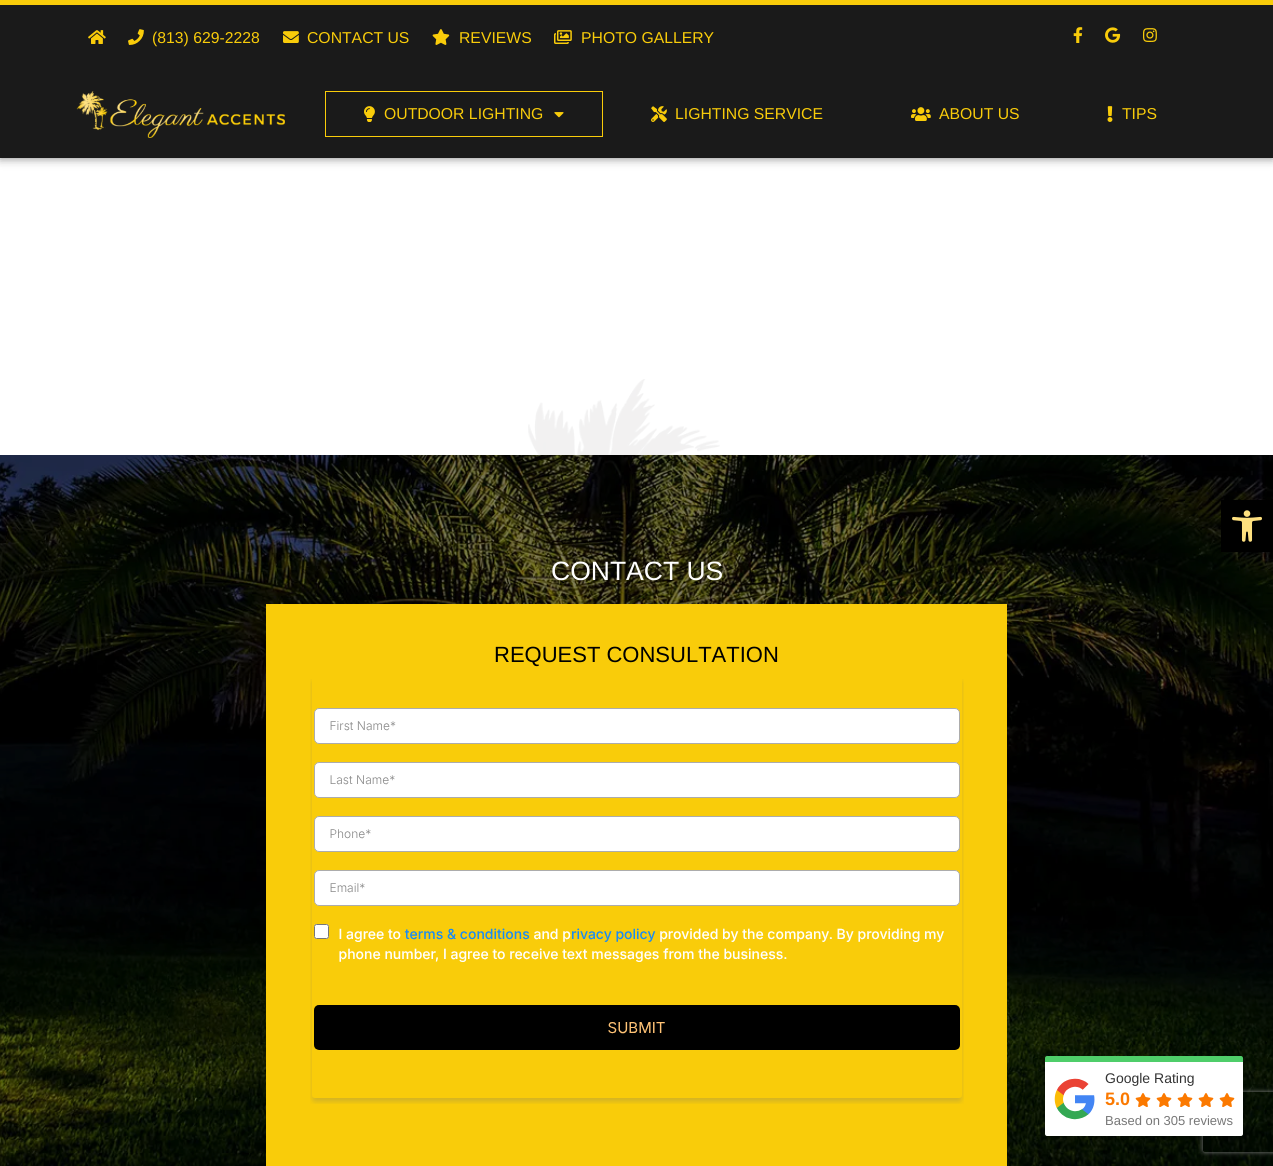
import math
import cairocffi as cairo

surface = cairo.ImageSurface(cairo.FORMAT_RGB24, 1273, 1166)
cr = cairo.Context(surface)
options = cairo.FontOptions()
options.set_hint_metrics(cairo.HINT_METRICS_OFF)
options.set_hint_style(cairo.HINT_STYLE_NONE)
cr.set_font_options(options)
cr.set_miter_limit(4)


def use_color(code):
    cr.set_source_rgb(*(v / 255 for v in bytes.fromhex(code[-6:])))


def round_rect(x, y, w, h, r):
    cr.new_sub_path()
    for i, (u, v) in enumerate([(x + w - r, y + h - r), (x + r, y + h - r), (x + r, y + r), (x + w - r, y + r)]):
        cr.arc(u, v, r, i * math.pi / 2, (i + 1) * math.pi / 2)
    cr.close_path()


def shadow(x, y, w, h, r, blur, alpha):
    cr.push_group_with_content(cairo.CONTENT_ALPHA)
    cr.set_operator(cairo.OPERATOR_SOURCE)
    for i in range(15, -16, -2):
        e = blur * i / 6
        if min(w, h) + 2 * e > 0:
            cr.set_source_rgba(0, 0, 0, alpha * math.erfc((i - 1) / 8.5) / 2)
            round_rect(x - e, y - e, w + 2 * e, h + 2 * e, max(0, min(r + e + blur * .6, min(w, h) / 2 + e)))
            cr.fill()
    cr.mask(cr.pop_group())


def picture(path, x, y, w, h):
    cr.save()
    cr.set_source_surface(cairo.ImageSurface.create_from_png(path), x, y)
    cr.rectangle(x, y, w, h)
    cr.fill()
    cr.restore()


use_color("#ffffff")
cr.paint()
picture("img1.png", 528, 379, 192, 76)
use_color("#000000")
shadow(0, 0, 1273, 158, 0, 5, 0.5)
use_color("#1a1a1a")
cr.rectangle(0, 5, 1273, 153)
cr.fill()
use_color("#f9cc0a")
cr.rectangle(0, 0, 1273, 5)
cr.fill()
picture("img2.png", 88, 30, 18, 14)
picture("img3.png", 128, 29, 16, 16)
cr.select_font_face("Liberation Sans")
cr.set_font_size(15.75)
cr.move_to(152, 43)
cr.show_text("(813) 629-2228")
picture("img4.png", 283, 31, 16, 12)
cr.move_to(307, 43)
cr.show_text("CONTACT US")
picture("img5.png", 432, 29, 18, 16)
cr.move_to(459, 43)
cr.show_text("REVIEWS")
picture("img6.png", 554, 30, 18, 14)
cr.move_to(581, 43)
cr.show_text("PHOTO GALLERY")
picture("img7.png", 1073, 27, 10, 16)
picture("img8.png", 1105, 27, 16, 16)
picture("img9.png", 1143, 28, 14, 14)
picture("img10.png", 76, 91, 209, 47)
picture("img11.png", 364, 106, 11, 16)
picture("img12.png", 554, 112, 10, 6)
cr.rectangle(325.5, 91.5, 277, 45)
cr.set_line_width(1)
cr.stroke()
cr.move_to(384, 119)
cr.show_text("OUTDOOR LIGHTING")
picture("img13.png", 651, 106, 16, 16)
cr.move_to(675, 119)
cr.show_text("LIGHTING SERVICE")
picture("img14.png", 911, 107, 20, 14)
cr.move_to(939, 119)
cr.show_text("ABOUT US")
picture("img15.png", 1107, 106, 6, 16)
cr.move_to(1122, 119)
cr.show_text("TIPS")
picture("img17.png", 0, 455, 1273, 711)
use_color("#000000")
cr.rectangle(1221, 500, 52, 52)
cr.fill()
picture("img16.png", 1232, 510, 30, 32)
cr.set_font_size(26.5)
use_color("#ffffff")
cr.move_to(551, 580)
cr.show_text("CONTACT US")
use_color("#f9cc0a")
cr.rectangle(266, 604, 741, 562)
cr.fill()
cr.set_font_size(22)
use_color("#000000")
cr.move_to(494, 662)
cr.show_text("REQUEST CONSULTATION")
picture("img18.png", 310, 679, 654, 425)
use_color("#000000")
shadow(1045, 1058, 198, 80, 2, 2.5, 0.26)
use_color("#4fce6a")
cr.new_path()
cr.move_to(1047, 1056)
cr.line_to(1241, 1056)
cr.curve_to(1242, 1056, 1243, 1057, 1243, 1058)
cr.line_to(1243, 1062)
cr.line_to(1045, 1062)
cr.line_to(1045, 1058)
cr.curve_to(1045, 1057, 1046, 1056, 1047, 1056)
cr.close_path()
cr.fill()
cr.save()
cr.set_fill_rule(cairo.FILL_RULE_EVEN_ODD)
cr.new_path()
cr.move_to(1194, 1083)
cr.line_to(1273, 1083)
cr.line_to(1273, 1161)
cr.line_to(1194, 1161)
cr.close_path()
cr.move_to(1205, 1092)
cr.line_to(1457, 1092)
cr.curve_to(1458, 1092, 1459, 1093, 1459, 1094)
cr.line_to(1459, 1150)
cr.curve_to(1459, 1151, 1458, 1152, 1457, 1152)
cr.line_to(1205, 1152)
cr.curve_to(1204, 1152, 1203, 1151, 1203, 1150)
cr.line_to(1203, 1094)
cr.curve_to(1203, 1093, 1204, 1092, 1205, 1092)
cr.close_path()
cr.clip()
use_color("#808080")
shadow(1203, 1092, 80, 60, 2, 2.5, 1)
cr.restore()
use_color("#ffffff")
cr.new_path()
cr.move_to(1045, 1062)
cr.line_to(1243, 1062)
cr.line_to(1243, 1134)
cr.curve_to(1243, 1135, 1242, 1136, 1241, 1136)
cr.line_to(1047, 1136)
cr.curve_to(1046, 1136, 1045, 1135, 1045, 1134)
cr.close_path()
cr.fill()
picture("img19.png", 1054, 1078, 41, 42)
cr.set_font_size(14)
use_color("#333333")
cr.move_to(1105, 1083)
cr.show_text("Google Rating")
cr.select_font_face("Liberation Sans", cairo.FONT_SLANT_NORMAL, cairo.FONT_WEIGHT_BOLD)
cr.set_font_size(18)
use_color("#fb7900")
cr.move_to(1105, 1105)
cr.show_text("5.0")
picture("img20.png", 1135, 1093, 16, 14)
picture("img20.png", 1156, 1093, 16, 14)
picture("img20.png", 1177, 1093, 16, 14)
picture("img20.png", 1198, 1093, 16, 14)
picture("img20.png", 1219, 1093, 16, 14)
cr.select_font_face("Liberation Sans")
cr.set_font_size(13)
use_color("#777777")
cr.move_to(1105, 1125)
cr.show_text("Based on 305 reviews")
surface.write_to_png("result.png")
